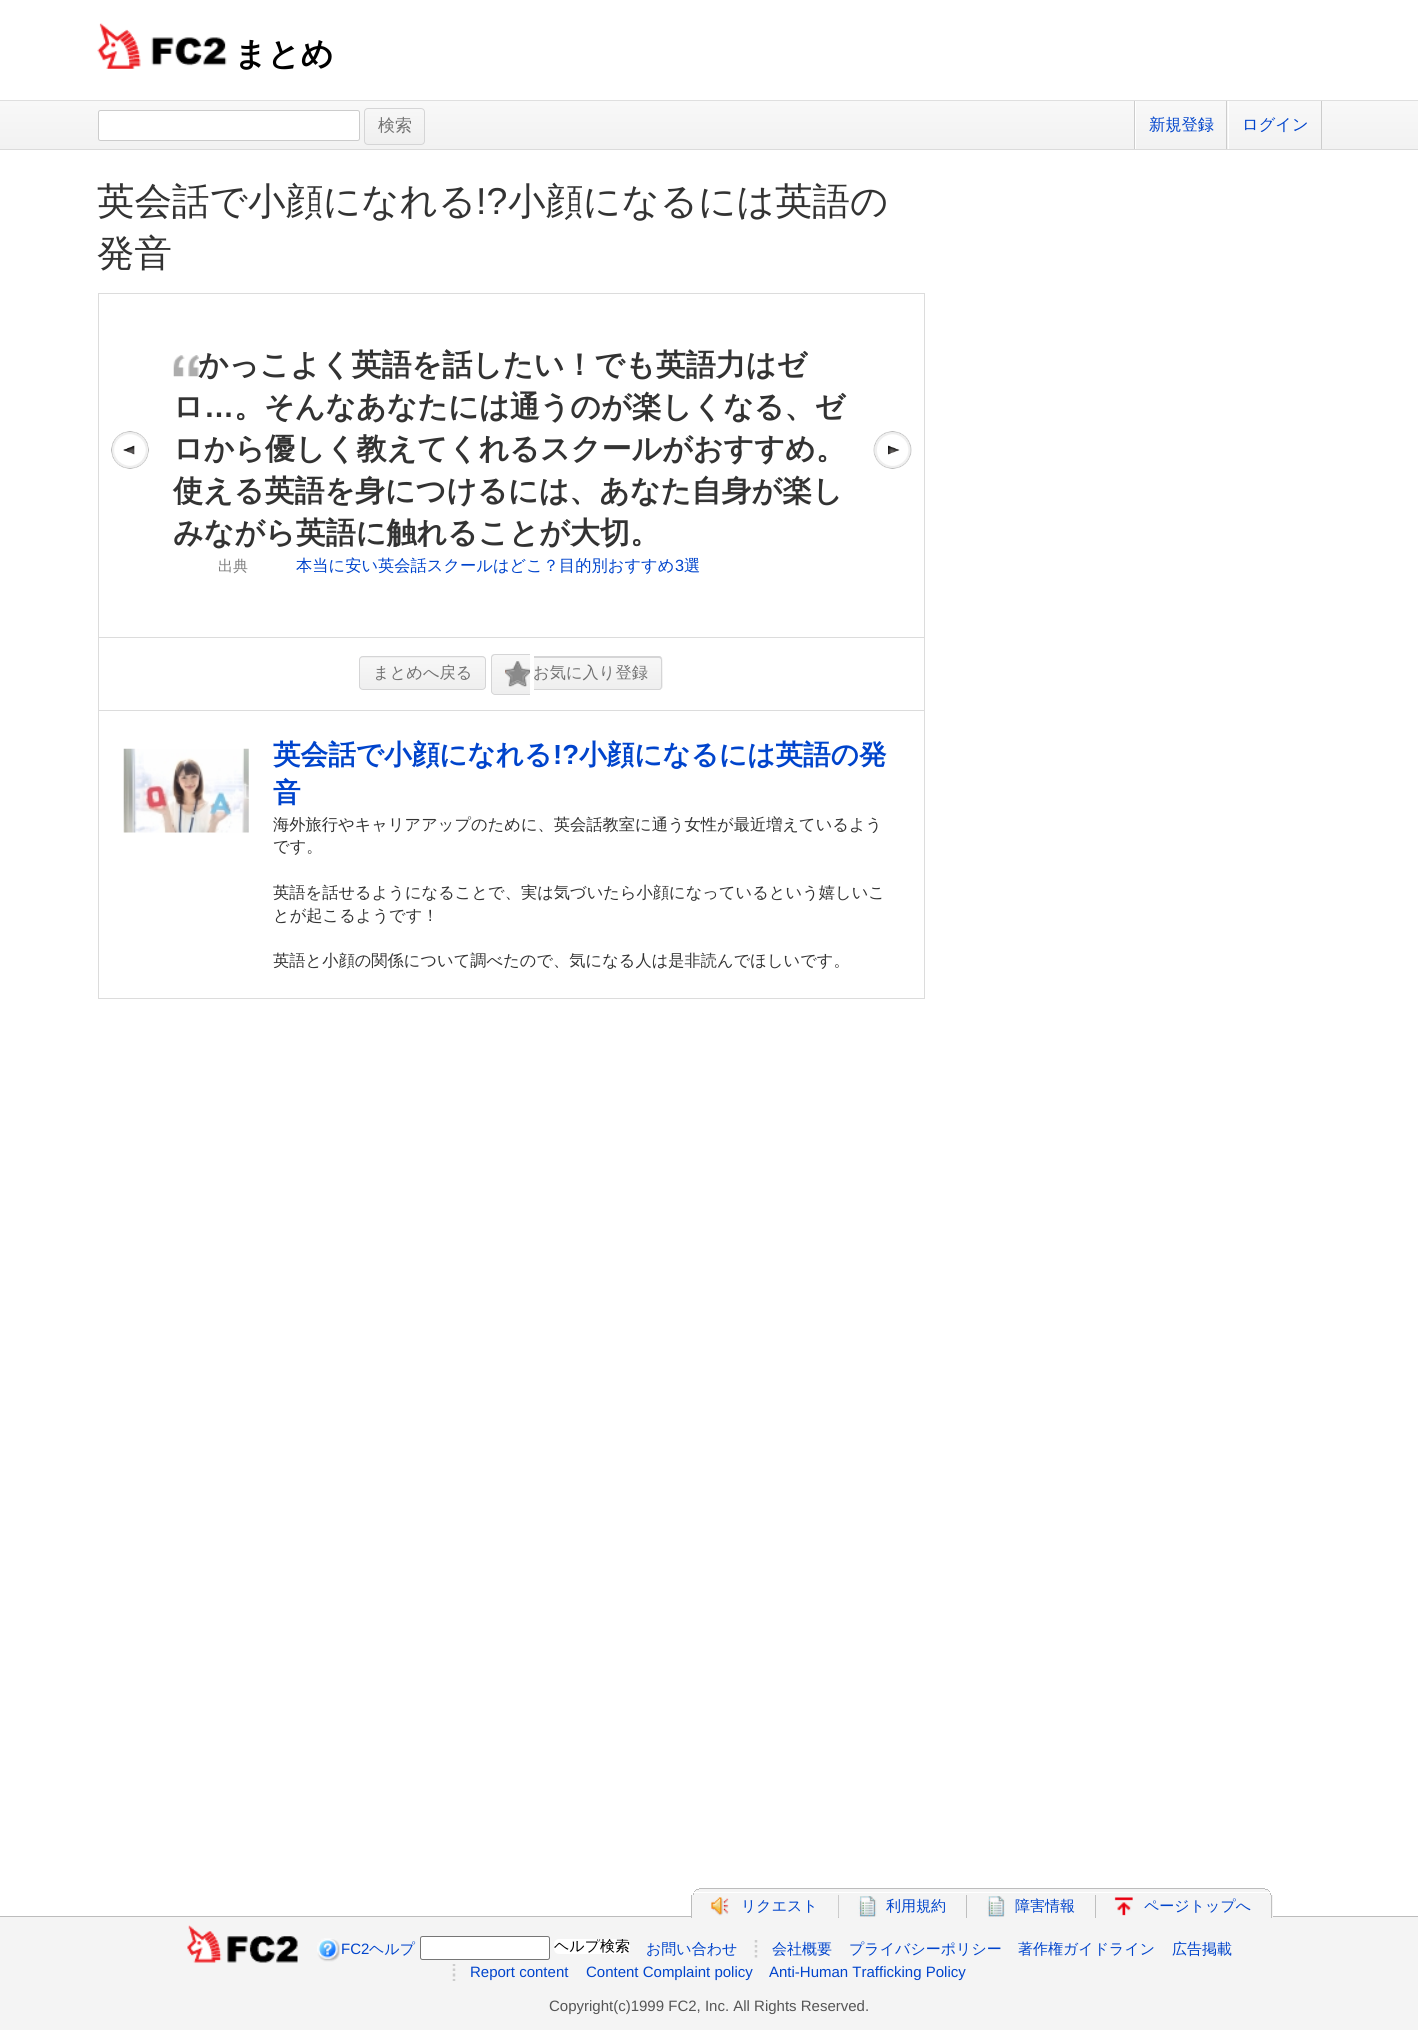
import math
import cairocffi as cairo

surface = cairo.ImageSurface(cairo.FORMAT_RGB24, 1418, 2030)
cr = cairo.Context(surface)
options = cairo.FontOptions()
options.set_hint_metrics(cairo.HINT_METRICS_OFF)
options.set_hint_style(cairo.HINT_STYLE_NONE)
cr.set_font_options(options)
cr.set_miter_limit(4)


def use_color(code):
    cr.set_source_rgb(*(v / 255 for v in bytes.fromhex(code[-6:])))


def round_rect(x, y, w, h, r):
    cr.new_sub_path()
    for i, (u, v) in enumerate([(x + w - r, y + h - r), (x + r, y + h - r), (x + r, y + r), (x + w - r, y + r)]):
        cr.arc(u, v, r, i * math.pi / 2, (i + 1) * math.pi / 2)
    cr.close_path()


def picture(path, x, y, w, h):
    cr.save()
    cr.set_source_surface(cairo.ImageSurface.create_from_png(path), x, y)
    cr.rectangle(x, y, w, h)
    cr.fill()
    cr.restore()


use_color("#ffffff")
cr.paint()
picture("img1.png", 97, 23, 130, 46)
cr.select_font_face("WenQuanYi Zen Hei", cairo.FONT_SLANT_NORMAL, cairo.FONT_WEIGHT_BOLD)
cr.set_font_size(32.5)
use_color("#000000")
cr.move_to(234, 65)
cr.show_text("まとめ")
gradient = cairo.LinearGradient(709, 101, 709, 149)
gradient.add_color_stop_rgba(0, 0.973, 0.973, 0.973, 1)
gradient.add_color_stop_rgba(1, 0.949, 0.949, 0.949, 1)
cr.set_source(gradient)
cr.rectangle(0, 101, 1418, 48)
cr.fill()
use_color("#dfdfdf")
cr.rectangle(0, 100, 1418, 1)
cr.fill()
use_color("#dbdbdb")
cr.rectangle(0, 149, 1418, 1)
cr.fill()
use_color("#ffffff")
round_rect(98.5, 110.5, 261, 30, 2)
cr.fill_preserve()
use_color("#cccccc")
cr.set_line_width(1)
cr.stroke()
cr.save()
round_rect(364, 108, 61, 37, 4)
cr.clip()
gradient = cairo.LinearGradient(394, 109, 394, 144)
gradient.add_color_stop_rgba(0, 0.969, 0.969, 0.969, 1)
gradient.add_color_stop_rgba(1, 0.937, 0.937, 0.937, 1)
cr.set_source(gradient)
cr.rectangle(364, 109, 61, 35)
cr.fill()
cr.restore()
round_rect(364.5, 108.5, 60, 36, 3.5)
use_color("#d5d5d6")
cr.stroke()
cr.select_font_face("WenQuanYi Zen Hei Medium")
cr.set_font_size(17)
use_color("#727272")
cr.move_to(378, 131)
cr.show_text("検索")
use_color("#cccccc")
cr.rectangle(1134, 101, 1, 48)
cr.fill()
use_color("#ffffff")
cr.rectangle(1135, 101, 1, 48)
cr.fill()
cr.set_font_size(16.25)
use_color("#0044cc")
cr.move_to(1149, 130)
cr.show_text("新規登録")
use_color("#cccccc")
cr.rectangle(1321, 101, 1, 48)
cr.fill()
cr.rectangle(1226, 101, 1, 48)
cr.fill()
use_color("#ffffff")
cr.rectangle(1228, 101, 1, 48)
cr.fill()
use_color("#0044cc")
cr.move_to(1242, 130)
cr.show_text("ログイン")
cr.set_font_size(37.5)
use_color("#333333")
cr.move_to(97, 214)
cr.show_text("英会話で小顔になれる")
cr.select_font_face("Liberation Sans")
cr.move_to(476, 214)
cr.show_text("!?")
cr.select_font_face("WenQuanYi Zen Hei Medium")
cr.move_to(508, 214)
cr.show_text("小顔になるには英語の")
cr.move_to(97, 266)
cr.show_text("発音")
cr.rectangle(98.5, 293.5, 826, 344)
use_color("#dcdcdc")
cr.stroke()
picture("img2.png", 111, 431, 38, 38)
cr.select_font_face("WenQuanYi Zen Hei", cairo.FONT_SLANT_NORMAL, cairo.FONT_WEIGHT_BOLD)
cr.set_font_size(30)
use_color("#333333")
cr.move_to(198, 375)
cr.show_text("かっこよく英語を話したい！でも英語力はゼ")
picture("img3.png", 173, 355, 26, 22)
cr.move_to(173, 417)
cr.show_text("ロ")
cr.select_font_face("Liberation Sans", cairo.FONT_SLANT_NORMAL, cairo.FONT_WEIGHT_BOLD)
cr.move_to(204, 417)
cr.show_text("…")
cr.select_font_face("WenQuanYi Zen Hei", cairo.FONT_SLANT_NORMAL, cairo.FONT_WEIGHT_BOLD)
cr.move_to(234, 417)
cr.show_text("。そんなあなたには通うのが楽しくなる、ゼ")
cr.move_to(173, 459)
cr.show_text("ロから優しく教えてくれるスクールがおすすめ。")
cr.move_to(173, 501)
cr.show_text("使える英語を身につけるには、あなた自身が楽し")
cr.move_to(173, 543)
cr.show_text("みながら英語に触れることが大切。")
cr.select_font_face("WenQuanYi Zen Hei Medium")
cr.set_font_size(15)
use_color("#808080")
cr.move_to(218, 571)
cr.show_text("出典")
cr.set_font_size(16.25)
use_color("#0044cc")
cr.move_to(296, 571)
cr.show_text("本当に安い英会話スクールはどこ？目的別おすすめ")
cr.select_font_face("Liberation Sans")
cr.move_to(675, 571)
cr.show_text("3")
cr.select_font_face("WenQuanYi Zen Hei Medium")
cr.move_to(684, 571)
cr.show_text("選")
picture("img4.png", 873, 431, 39, 38)
use_color("#dcdcdc")
cr.rectangle(924, 638, 1, 72)
cr.fill()
cr.rectangle(98, 638, 1, 72)
cr.fill()
cr.save()
round_rect(359, 656, 127, 34, 4)
cr.clip()
gradient = cairo.LinearGradient(423, 658, 423, 689)
gradient.add_color_stop_rgba(0, 0.969, 0.969, 0.969, 1)
gradient.add_color_stop_rgba(1, 0.937, 0.937, 0.937, 1)
cr.set_source(gradient)
cr.rectangle(359, 658, 127, 31)
cr.fill()
gradient = cairo.LinearGradient(423, 626, 423, 658)
gradient.add_color_stop_rgba(0, 0.969, 0.969, 0.969, 1)
gradient.add_color_stop_rgba(1, 0.937, 0.937, 0.937, 1)
cr.set_source(gradient)
cr.rectangle(359, 656, 127, 2)
cr.fill()
cr.restore()
round_rect(359.5, 656.5, 126, 33, 3.5)
use_color("#d5d5d6")
cr.stroke()
use_color("#727272")
cr.move_to(373, 678)
cr.show_text("まとめへ戻る")
cr.save()
cr.new_path()
cr.move_to(495, 654)
cr.line_to(530, 654)
cr.line_to(530, 695)
cr.line_to(495, 695)
cr.curve_to(493, 695, 491, 693, 491, 691)
cr.line_to(491, 658)
cr.curve_to(491, 656, 493, 654, 495, 654)
cr.close_path()
cr.clip()
gradient = cairo.LinearGradient(511, 655, 511, 694)
gradient.add_color_stop_rgba(0, 0.969, 0.969, 0.969, 1)
gradient.add_color_stop_rgba(1, 0.937, 0.937, 0.937, 1)
cr.set_source(gradient)
cr.rectangle(491, 655, 39, 39)
cr.fill()
cr.restore()
use_color("#d5d5d6")
cr.set_fill_rule(cairo.FILL_RULE_EVEN_ODD)
cr.new_path()
cr.move_to(495, 654)
cr.line_to(530, 654)
cr.line_to(530, 695)
cr.line_to(495, 695)
cr.curve_to(493, 695, 491, 693, 491, 691)
cr.line_to(491, 658)
cr.curve_to(491, 655, 493, 654, 495, 654)
cr.close_path()
cr.move_to(495, 655)
cr.line_to(530, 655)
cr.line_to(530, 694)
cr.line_to(495, 694)
cr.curve_to(494, 694, 492, 693, 492, 691)
cr.line_to(492, 658)
cr.curve_to(492, 656, 494, 655, 495, 655)
cr.close_path()
cr.fill()
picture("img5.png", 505, 661, 25, 26)
cr.save()
cr.set_fill_rule(cairo.FILL_RULE_WINDING)
cr.new_path()
cr.move_to(534, 656)
cr.line_to(659, 656)
cr.curve_to(661, 656, 663, 658, 663, 660)
cr.line_to(663, 686)
cr.curve_to(663, 688, 661, 690, 659, 690)
cr.line_to(534, 690)
cr.close_path()
cr.clip()
gradient = cairo.LinearGradient(598, 658, 598, 689)
gradient.add_color_stop_rgba(0, 0.969, 0.969, 0.969, 1)
gradient.add_color_stop_rgba(1, 0.937, 0.937, 0.937, 1)
cr.set_source(gradient)
cr.rectangle(534, 658, 129, 31)
cr.fill()
gradient = cairo.LinearGradient(598, 626, 598, 658)
gradient.add_color_stop_rgba(0, 0.969, 0.969, 0.969, 1)
gradient.add_color_stop_rgba(1, 0.937, 0.937, 0.937, 1)
cr.set_source(gradient)
cr.rectangle(659, 656, 4, 2)
cr.fill()
gradient = cairo.LinearGradient(598, 689, 598, 720)
gradient.add_color_stop_rgba(0, 0.969, 0.969, 0.969, 1)
gradient.add_color_stop_rgba(1, 0.937, 0.937, 0.937, 1)
cr.set_source(gradient)
cr.rectangle(659, 689, 4, 1)
cr.fill()
cr.restore()
cr.new_path()
cr.move_to(534, 656)
cr.line_to(659, 656)
cr.curve_to(661, 656, 662, 658, 662, 660)
cr.line_to(662, 686)
cr.curve_to(662, 688, 661, 690, 659, 690)
cr.line_to(534, 690)
cr.close_path()
cr.move_to(534, 658)
cr.line_to(659, 658)
cr.curve_to(660, 658, 661, 659, 661, 660)
cr.line_to(661, 686)
cr.curve_to(661, 688, 660, 689, 659, 689)
cr.line_to(534, 689)
cr.close_path()
cr.fill()
use_color("#727272")
cr.move_to(533, 678)
cr.show_text("お気に入り登録")
cr.rectangle(98.5, 710.5, 826, 288)
use_color("#dcdcdc")
cr.stroke()
picture("img6.png", 123, 748, 126, 85)
cr.select_font_face("WenQuanYi Zen Hei", cairo.FONT_SLANT_NORMAL, cairo.FONT_WEIGHT_BOLD)
cr.set_font_size(27.6)
use_color("#0044cc")
cr.move_to(273, 764)
cr.show_text("英会話で小顔になれる")
cr.select_font_face("Liberation Sans", cairo.FONT_SLANT_NORMAL, cairo.FONT_WEIGHT_BOLD)
cr.move_to(553, 764)
cr.show_text("!?")
cr.select_font_face("WenQuanYi Zen Hei", cairo.FONT_SLANT_NORMAL, cairo.FONT_WEIGHT_BOLD)
cr.move_to(579, 764)
cr.show_text("小顔になるには英語の発")
cr.move_to(273, 802)
cr.show_text("音")
cr.select_font_face("WenQuanYi Zen Hei Medium")
cr.set_font_size(16.25)
use_color("#333333")
cr.move_to(273, 830)
cr.show_text("海外旅行やキャリアアップのために、英会話教室に通う女性が最近増えているよう")
cr.move_to(273, 852)
cr.show_text("です。")
cr.move_to(273, 898)
cr.show_text("英語を話せるようになることで、実は気づいたら小顔になっているという嬉しいこ")
cr.move_to(273, 921)
cr.show_text("とが起こるようです！")
cr.move_to(273, 966)
cr.show_text("英語と小顔の関係について調べたので、気になる人は是非読んでほしいです。")
use_color("#bcbcbc")
cr.rectangle(699, 1888, 566, 1)
cr.fill()
use_color("#f4f4f4")
cr.rectangle(696, 1889, 572, 1)
cr.fill()
use_color("#bcbcbc")
cr.rectangle(1265, 1889, 3, 1)
cr.fill()
cr.rectangle(696, 1889, 3, 1)
cr.fill()
use_color("#f4f4f4")
cr.rectangle(695, 1890, 574, 1)
cr.fill()
use_color("#bcbcbc")
cr.rectangle(1268, 1890, 1, 1)
cr.fill()
cr.rectangle(695, 1890, 1, 1)
cr.fill()
use_color("#f4f4f4")
cr.rectangle(694, 1891, 576, 1)
cr.fill()
use_color("#bcbcbc")
cr.rectangle(1269, 1891, 1, 1)
cr.fill()
cr.rectangle(694, 1891, 1, 1)
cr.fill()
use_color("#f4f4f4")
cr.rectangle(693, 1893, 578, 2)
cr.fill()
use_color("#bcbcbc")
cr.rectangle(1270, 1893, 1, 3)
cr.fill()
cr.rectangle(693, 1893, 1, 3)
cr.fill()
cr.rectangle(0, 1916, 1418, 1)
cr.fill()
use_color("#f4f4f4")
cr.rectangle(692, 1895, 581, 22)
cr.fill()
cr.rectangle(0, 1917, 1418, 113)
cr.fill()
use_color("#bcbcbc")
cr.rectangle(1271, 1895, 1, 23)
cr.fill()
cr.rectangle(691, 1895, 1, 23)
cr.fill()
picture("img7.png", 710, 1897, 19, 19)
use_color("#bfbfbf")
cr.rectangle(838, 1895, 1, 23)
cr.fill()
cr.set_font_size(15)
use_color("#0044cc")
cr.move_to(741, 1911)
cr.show_text("リクエスト")
picture("img8.png", 838, 1895, 39, 23)
use_color("#bfbfbf")
cr.rectangle(966, 1895, 1, 23)
cr.fill()
use_color("#0044cc")
cr.move_to(886, 1911)
cr.show_text("利用規約")
picture("img9.png", 987, 1896, 18, 21)
use_color("#bfbfbf")
cr.rectangle(1095, 1895, 1, 23)
cr.fill()
use_color("#0044cc")
cr.move_to(1015, 1911)
cr.show_text("障害情報")
picture("img10.png", 1114, 1895, 158, 22)
cr.move_to(1144, 1911)
cr.show_text("ページトップへ")
picture("img11.png", 187, 1925, 111, 38)
picture("img12.png", 317, 1938, 23, 24)
cr.select_font_face("Liberation Sans")
cr.move_to(341, 1954)
cr.show_text("FC2")
cr.select_font_face("WenQuanYi Zen Hei Medium")
cr.move_to(369, 1954)
cr.show_text("ヘルプ")
use_color("#ffffff")
round_rect(420.5, 1936.5, 129, 23, 2)
cr.fill_preserve()
use_color("#767676")
cr.stroke()
use_color("#ffffff")
round_rect(554, 1939, 76, 15, 5)
cr.fill()
cr.save()
cr.set_fill_rule(cairo.FILL_RULE_WINDING)
round_rect(554, 1939, 76, 15, 5)
cr.clip()
use_color("#000000")
cr.move_to(554, 1951)
cr.show_text("ヘルプ検索")
cr.restore()
use_color("#0044cc")
cr.move_to(646, 1954)
cr.show_text("お問い合わせ")
cr.move_to(772, 1954)
cr.show_text("会社概要")
cr.new_path()
cr.move_to(756, 1940)
cr.line_to(756, 1942.5)
cr.move_to(756, 1945)
cr.line_to(756, 1947.5)
cr.move_to(756, 1950)
cr.line_to(756, 1952.5)
cr.move_to(756, 1955)
cr.line_to(756, 1957.5)
use_color("#cccccc")
cr.set_line_width(2.5)
cr.stroke()
use_color("#0044cc")
cr.move_to(849, 1954)
cr.show_text("プライバシーポリシー")
cr.move_to(1018, 1954)
cr.show_text("著作権ガイドライン")
cr.move_to(1172, 1954)
cr.show_text("広告掲載")
cr.select_font_face("Liberation Sans")
cr.move_to(470, 1977)
cr.show_text("Report content")
cr.new_path()
cr.move_to(454, 1964)
cr.line_to(454, 1966)
cr.move_to(454, 1968.5)
cr.line_to(454, 1971)
cr.move_to(454, 1973.5)
cr.line_to(454, 1976.5)
cr.move_to(454, 1979)
cr.line_to(454, 1981)
use_color("#cccccc")
cr.stroke()
use_color("#0044cc")
cr.move_to(586, 1977)
cr.show_text("Content Complaint policy")
cr.move_to(769, 1977)
cr.show_text("Anti-Human Trafficking Policy")
use_color("#555555")
cr.move_to(549, 2011)
cr.show_text("Copyright(c)1999 FC2, Inc. All Rights Reserved.")
surface.write_to_png("result.png")
